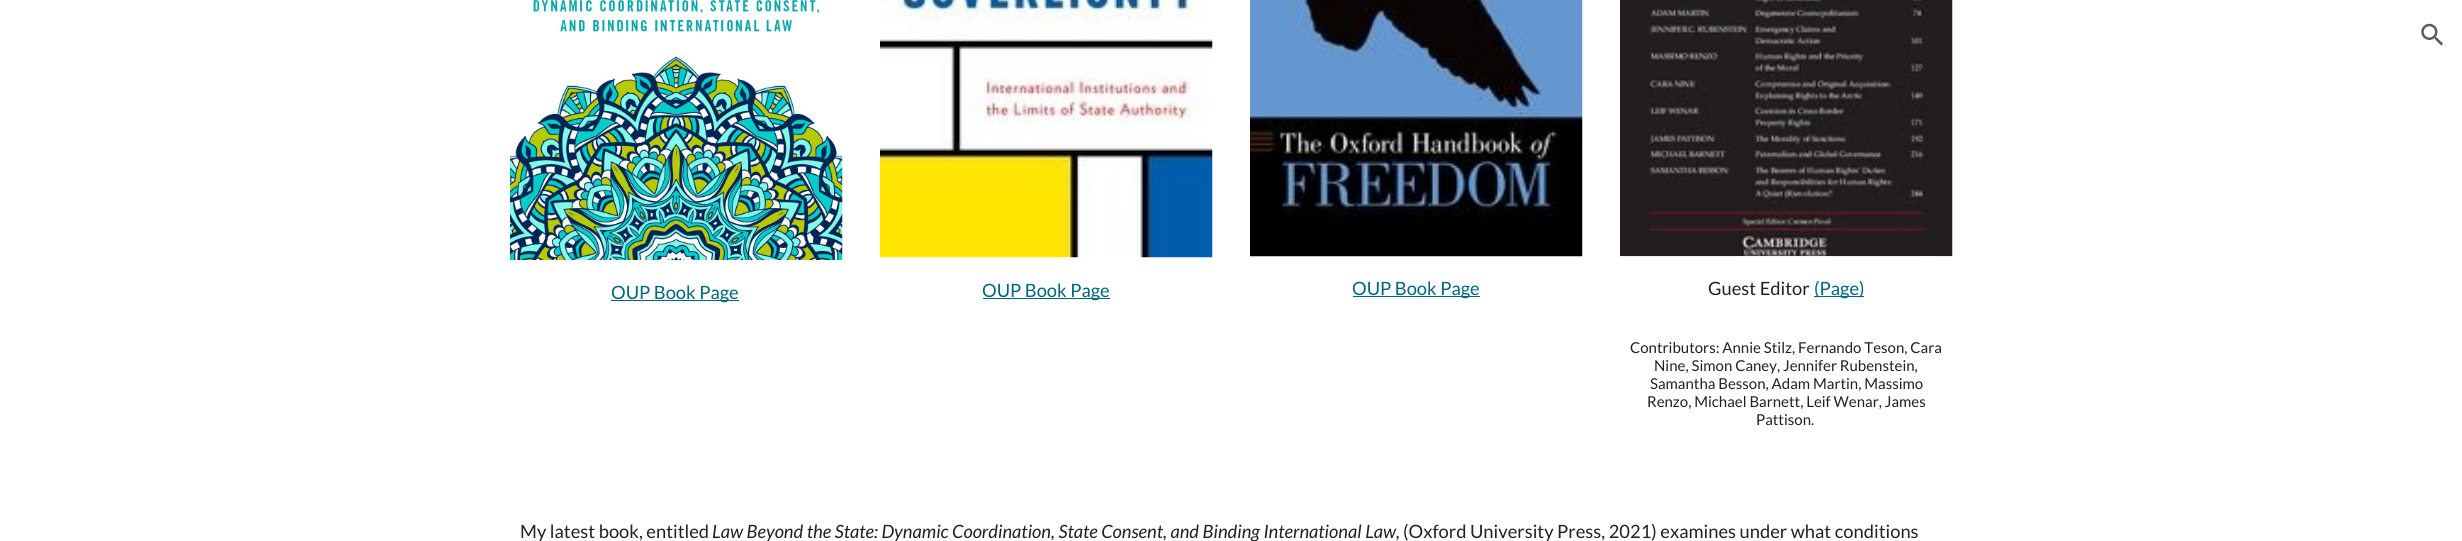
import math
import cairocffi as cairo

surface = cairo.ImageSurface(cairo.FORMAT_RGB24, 2462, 541)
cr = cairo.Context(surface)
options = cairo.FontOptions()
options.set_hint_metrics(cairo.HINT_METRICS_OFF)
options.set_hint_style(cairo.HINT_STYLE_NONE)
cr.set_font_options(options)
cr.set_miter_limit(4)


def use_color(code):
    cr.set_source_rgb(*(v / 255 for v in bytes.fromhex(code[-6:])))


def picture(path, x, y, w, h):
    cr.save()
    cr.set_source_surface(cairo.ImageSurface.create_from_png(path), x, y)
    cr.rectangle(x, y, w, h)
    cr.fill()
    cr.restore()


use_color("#ffffff")
cr.paint()
picture("img1.png", 2421, 23, 22, 23)
picture("img2.png", 510, 0, 333, 260)
use_color("#006580")
cr.rectangle(611, 300, 128, 1)
cr.fill()
cr.select_font_face("Lato")
cr.set_font_size(18.35)
cr.move_to(611, 299)
cr.show_text("OUP Book Page")
picture("img3.png", 880, 0, 333, 258)
cr.rectangle(983, 298, 127, 1)
cr.fill()
cr.move_to(982, 297)
cr.show_text("OUP Book Page")
picture("img4.png", 1250, 0, 333, 257)
cr.rectangle(1353, 296, 127, 1)
cr.fill()
cr.move_to(1352, 295)
cr.show_text("OUP Book Page")
picture("img5.png", 1620, 0, 333, 257)
use_color("#212121")
cr.move_to(1708, 295)
cr.show_text("Guest Editor")
use_color("#006580")
cr.rectangle(1814, 296, 50, 1)
cr.fill()
cr.move_to(1814, 295)
cr.show_text("(Page)")
cr.set_font_size(15)
use_color("#212121")
cr.move_to(1630, 353)
cr.show_text("Contributors: Annie Stilz, Fernando Teson, Cara")
cr.move_to(1654, 371)
cr.show_text("Nine, Simon Caney, Jennifer Rubenstein,")
cr.move_to(1650, 389)
cr.show_text("Samantha Besson, Adam Martin, Massimo")
cr.move_to(1647, 407)
cr.show_text("Renzo, Michael Barnett, Leif Wenar, James")
cr.move_to(1756, 425)
cr.show_text("Pattison.")
cr.set_font_size(18.35)
cr.move_to(520, 538)
cr.show_text("My latest book, entitled")
cr.select_font_face("Lato", cairo.FONT_SLANT_ITALIC)
cr.move_to(712, 538)
cr.show_text("Law Beyond the State: Dynamic Coordination, State Consent, and Binding International Law,")
cr.select_font_face("Lato")
cr.move_to(1403, 538)
cr.show_text("(Oxford University Press, 2021) examines under what conditions")
surface.write_to_png("result.png")
